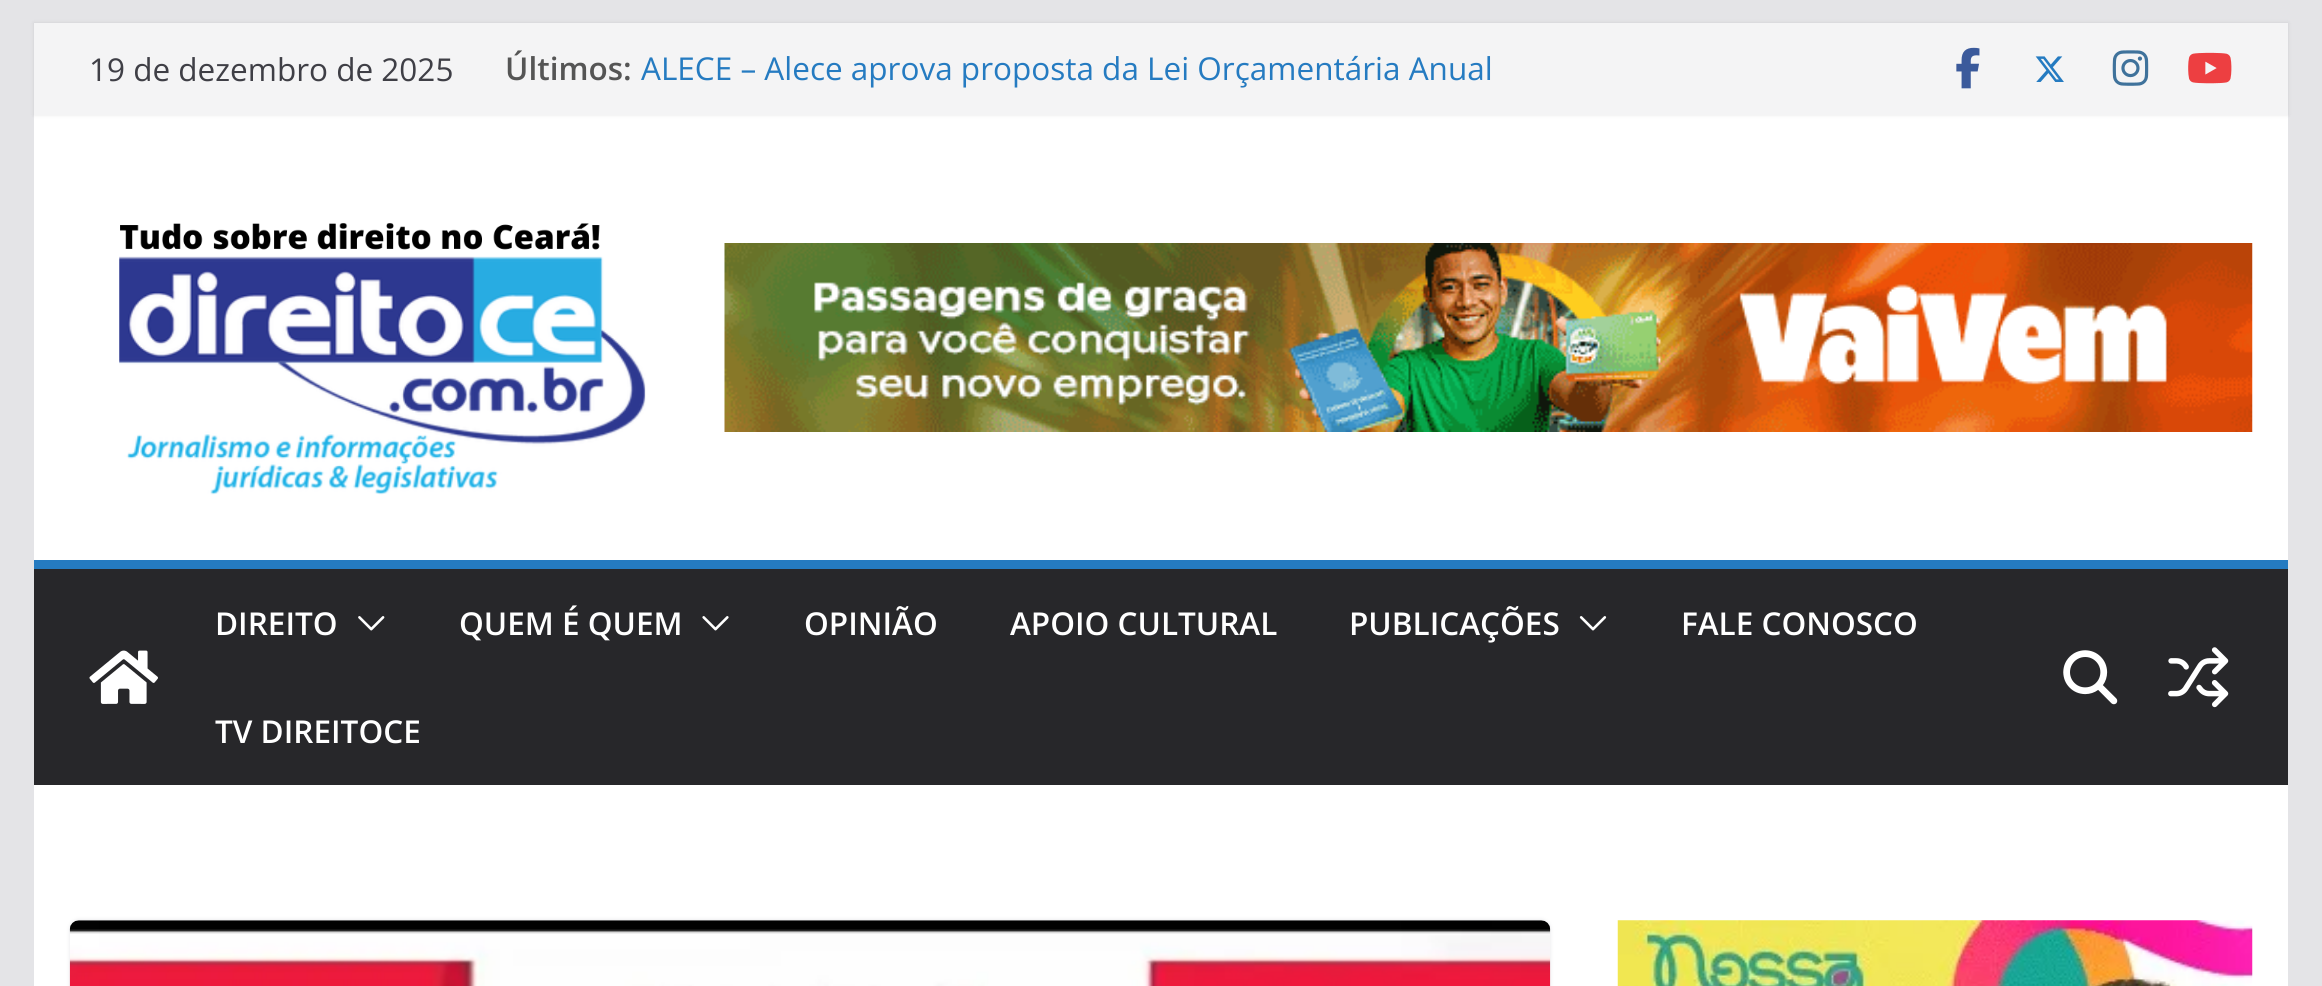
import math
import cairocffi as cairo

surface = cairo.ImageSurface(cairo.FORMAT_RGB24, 2322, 986)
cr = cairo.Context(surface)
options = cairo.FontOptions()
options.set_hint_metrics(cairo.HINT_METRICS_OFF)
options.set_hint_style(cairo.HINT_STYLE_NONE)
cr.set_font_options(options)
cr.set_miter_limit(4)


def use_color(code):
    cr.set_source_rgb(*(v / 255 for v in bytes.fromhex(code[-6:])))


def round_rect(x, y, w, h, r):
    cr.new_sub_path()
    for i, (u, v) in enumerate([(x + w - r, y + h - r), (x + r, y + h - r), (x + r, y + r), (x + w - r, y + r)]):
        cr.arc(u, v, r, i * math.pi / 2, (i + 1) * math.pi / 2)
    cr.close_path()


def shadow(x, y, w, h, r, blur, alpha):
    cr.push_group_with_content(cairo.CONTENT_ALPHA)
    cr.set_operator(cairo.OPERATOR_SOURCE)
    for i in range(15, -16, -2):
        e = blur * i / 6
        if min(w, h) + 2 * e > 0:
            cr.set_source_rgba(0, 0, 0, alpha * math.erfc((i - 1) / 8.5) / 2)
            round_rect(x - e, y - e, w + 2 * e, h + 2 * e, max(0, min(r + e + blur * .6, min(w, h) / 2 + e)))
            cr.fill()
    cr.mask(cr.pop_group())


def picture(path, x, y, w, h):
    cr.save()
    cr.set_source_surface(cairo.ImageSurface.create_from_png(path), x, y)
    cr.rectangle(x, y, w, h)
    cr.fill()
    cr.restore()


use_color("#e4e4e7")
cr.paint()
use_color("#ffffff")
cr.rectangle(34, 115, 2254, 445)
cr.fill()
use_color("#000000")
shadow(34, 23, 2254, 92, 0, 2, 0.1)
use_color("#f4f4f5")
cr.rectangle(34, 23, 2254, 92)
cr.fill()
cr.select_font_face("Open Sans")
cr.set_font_size(31.5)
use_color("#3f3f46")
cr.move_to(89, 81)
cr.show_text("19 de dezembro de 2025")
cr.select_font_face("Open Sans SemiBold")
use_color("#555555")
cr.move_to(505, 80)
cr.show_text("Últimos:")
cr.select_font_face("Open Sans")
use_color("#257bc1")
cr.move_to(641, 80)
cr.show_text("ALECE – Alece aprova proposta da Lei Orçamentária Anual")
picture("img1.png", 1956, 47, 24, 42)
picture("img2.png", 2035, 56, 29, 26)
picture("img3.png", 2112, 50, 37, 36)
picture("img4.png", 2188, 52, 44, 32)
picture("img5.png", 119, 223, 527, 272)
picture("img6.png", 724, 243, 1529, 189)
use_color("#27272a")
cr.rectangle(34, 569, 2254, 216)
cr.fill()
use_color("#257bc1")
cr.rectangle(34, 560, 2254, 9)
cr.fill()
picture("img7.png", 89, 650, 69, 54)
cr.select_font_face("Open Sans SemiBold")
use_color("#ffffff")
cr.move_to(215, 635)
cr.show_text("DIREITO")
picture("img8.png", 358, 616, 27, 15)
cr.move_to(459, 635)
cr.show_text("QUEM É QUEM")
picture("img9.png", 702, 616, 27, 15)
cr.move_to(804, 635)
cr.show_text("OPINIÃO")
cr.move_to(1010, 635)
cr.show_text("APOIO CULTURAL")
cr.move_to(1349, 635)
cr.show_text("PUBLICAÇÕES")
picture("img10.png", 1579, 616, 28, 15)
cr.move_to(1681, 635)
cr.show_text("FALE CONOSCO")
cr.move_to(215, 743)
cr.show_text("TV DIREITOCE")
picture("img11.png", 2063, 650, 55, 55)
picture("img12.png", 2168, 647, 61, 61)
cr.rectangle(34, 785, 2254, 201)
cr.fill()
use_color("#e4e4e7")
shadow(70, 920, 1480, 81, 9, 2, 1)
picture("img13.png", 69, 920, 1482, 66)
picture("img14.png", 1617, 920, 636, 66)
surface.write_to_png("result.png")
